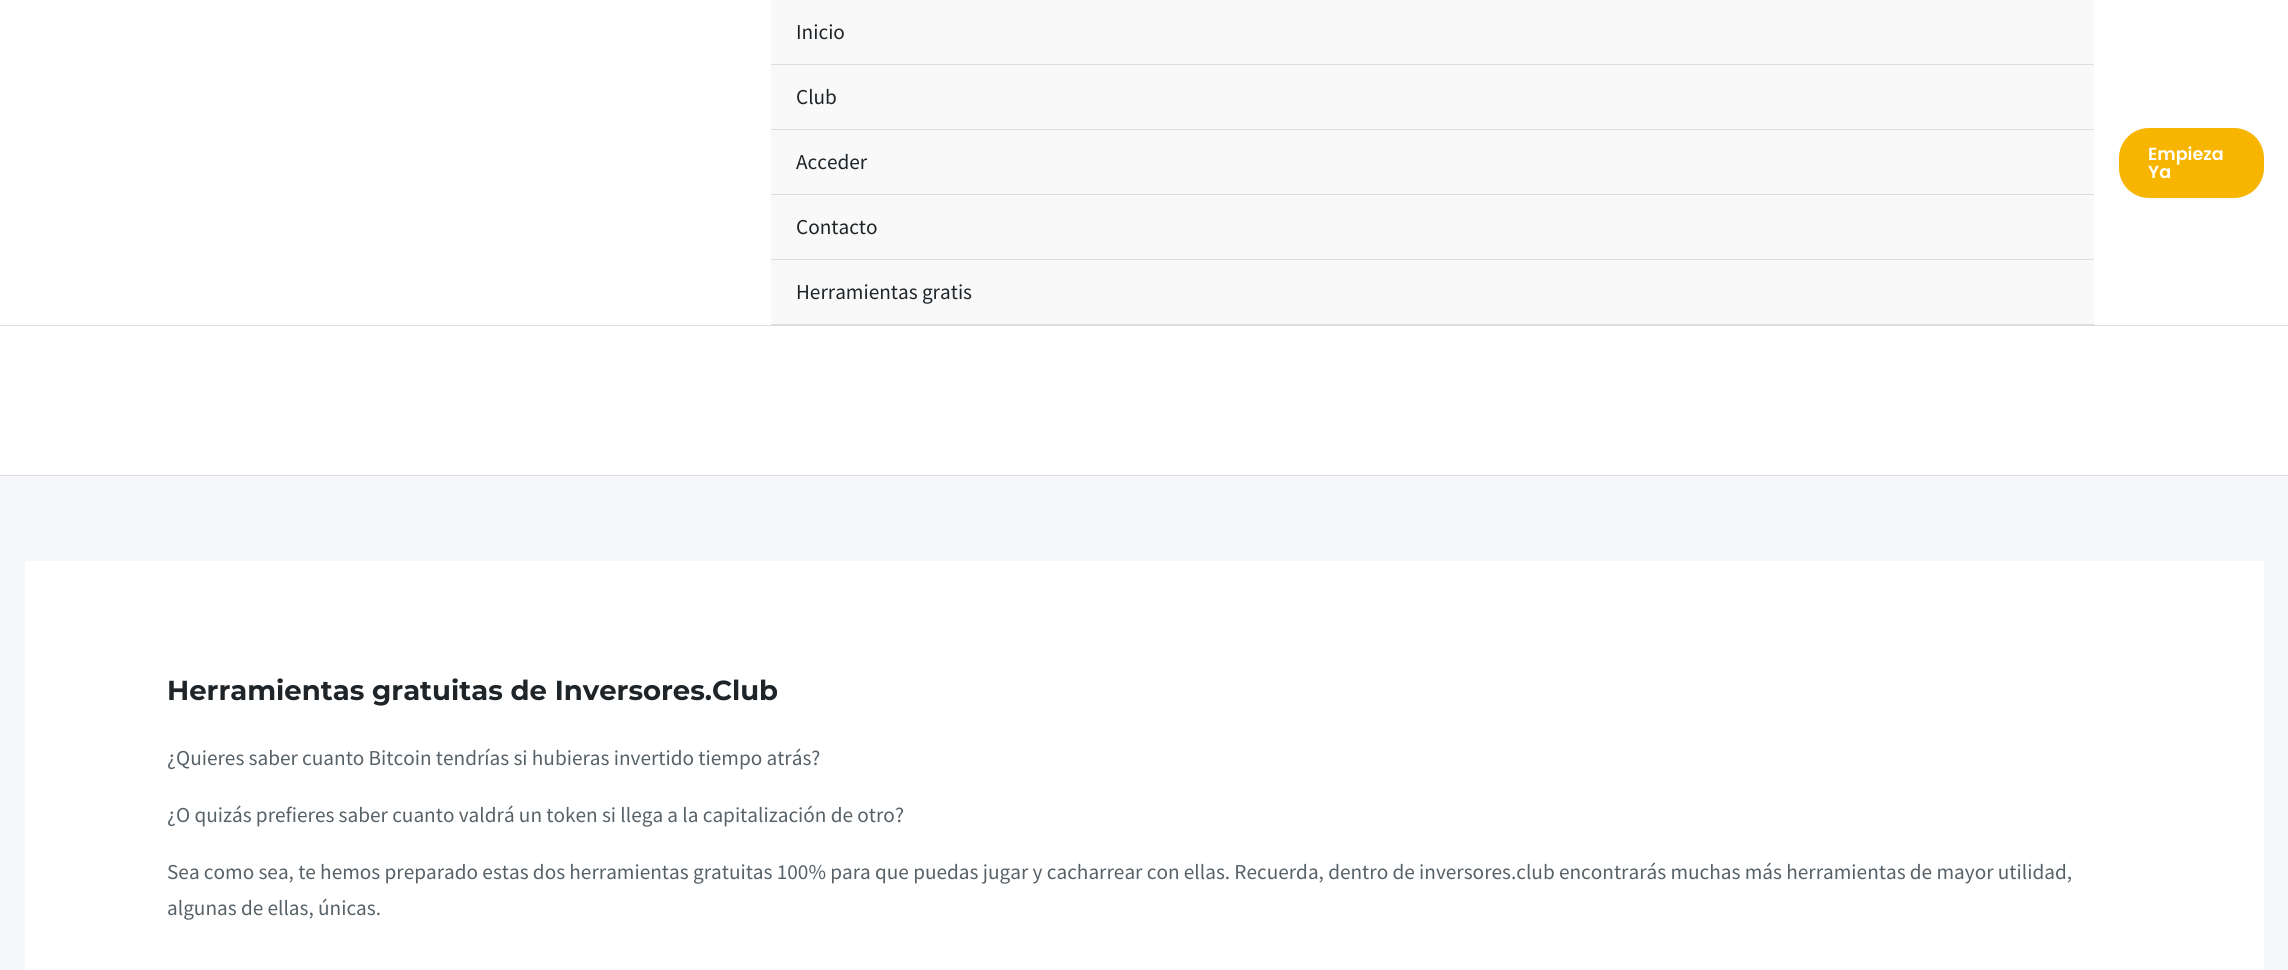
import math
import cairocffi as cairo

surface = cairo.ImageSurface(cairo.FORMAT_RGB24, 2288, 970)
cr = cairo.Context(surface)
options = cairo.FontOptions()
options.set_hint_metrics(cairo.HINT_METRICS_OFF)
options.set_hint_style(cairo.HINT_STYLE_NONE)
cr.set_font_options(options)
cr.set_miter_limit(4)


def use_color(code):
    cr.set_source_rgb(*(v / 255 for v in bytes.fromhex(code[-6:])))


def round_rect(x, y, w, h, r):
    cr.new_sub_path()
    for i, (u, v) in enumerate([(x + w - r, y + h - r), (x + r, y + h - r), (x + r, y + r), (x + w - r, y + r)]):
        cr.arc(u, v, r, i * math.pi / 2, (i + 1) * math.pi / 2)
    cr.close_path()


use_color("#f6f7fb")
cr.paint()
use_color("#ffffff")
cr.rectangle(0, 0, 2288, 325)
cr.fill()
use_color("#dddddd")
cr.rectangle(0, 325, 2288, 1)
cr.fill()
use_color("#f9f9f9")
cr.rectangle(771, 0, 1323, 324)
cr.fill()
use_color("#dddddd")
cr.rectangle(771, 64, 1323, 1)
cr.fill()
cr.select_font_face("Source Sans Pro")
cr.set_font_size(21.25)
use_color("#1e2428")
cr.move_to(796, 39)
cr.show_text("Inicio")
use_color("#dddddd")
cr.rectangle(771, 129, 1323, 1)
cr.fill()
use_color("#1e2428")
cr.move_to(796, 104)
cr.show_text("Club")
use_color("#dddddd")
cr.rectangle(771, 194, 1323, 1)
cr.fill()
use_color("#1e2428")
cr.move_to(796, 169)
cr.show_text("Acceder")
use_color("#dddddd")
cr.rectangle(771, 259, 1323, 1)
cr.fill()
use_color("#1e2428")
cr.move_to(796, 234)
cr.show_text("Contacto")
use_color("#dddddd")
cr.rectangle(771, 324, 1323, 1)
cr.fill()
use_color("#1e2428")
cr.move_to(796, 299)
cr.show_text("Herramientas gratis")
use_color("#f7b500")
round_rect(2119, 128, 145, 70, 30)
cr.fill()
cr.select_font_face("Poppins SemiBold")
cr.set_font_size(17.5)
use_color("#ffffff")
cr.move_to(2148, 160)
cr.show_text("Empieza")
cr.move_to(2148, 178)
cr.show_text("Ya")
cr.rectangle(0, 326, 2288, 149)
cr.fill()
use_color("#dddddd")
cr.rectangle(0, 475, 2288, 1)
cr.fill()
use_color("#ffffff")
cr.rectangle(25, 561, 2239, 409)
cr.fill()
cr.select_font_face("Montserrat Thin")
cr.set_font_size(27.5)
use_color("#1e2428")
cr.move_to(167, 700)
cr.show_text("Herramientas gratuitas de Inversores.Club")
cr.select_font_face("Source Sans Pro")
cr.set_font_size(21.25)
use_color("#576168")
cr.move_to(167, 765)
cr.show_text("¿Quieres saber cuanto Bitcoin tendrías si hubieras invertido tiempo atrás?")
cr.move_to(167, 822)
cr.show_text("¿O quizás prefieres saber cuanto valdrá un token si llega a la capitalización de otro?")
cr.move_to(167, 879)
cr.show_text("Sea como sea, te hemos preparado estas dos herramientas gratuitas 100% para que puedas jugar y cacharrear con ellas. Recuerda, dentro de inversores.club encontrarás muchas más herramientas de mayor utilidad,")
cr.move_to(167, 915)
cr.show_text("algunas de ellas, únicas.")
surface.write_to_png("result.png")
